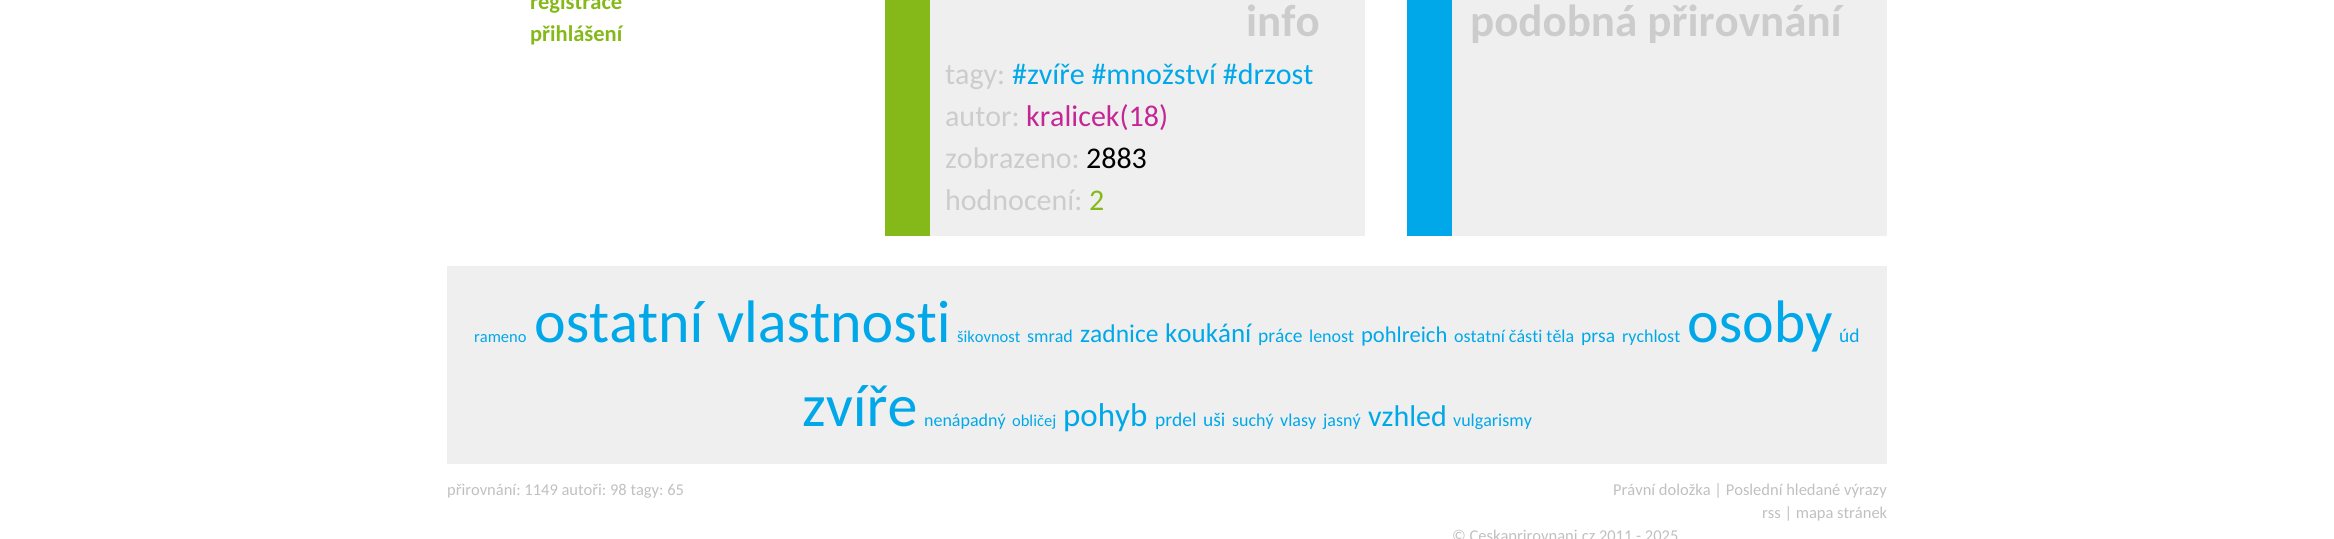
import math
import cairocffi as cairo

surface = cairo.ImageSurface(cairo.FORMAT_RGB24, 2334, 539)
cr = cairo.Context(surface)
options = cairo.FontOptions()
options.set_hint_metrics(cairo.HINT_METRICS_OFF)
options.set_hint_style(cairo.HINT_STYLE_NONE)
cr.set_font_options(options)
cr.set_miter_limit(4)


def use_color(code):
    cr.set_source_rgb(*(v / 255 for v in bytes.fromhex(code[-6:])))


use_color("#ffffff")
cr.paint()
cr.select_font_face("Carlito", cairo.FONT_SLANT_NORMAL, cairo.FONT_WEIGHT_BOLD)
cr.set_font_size(22.5)
use_color("#85b919")
cr.move_to(530, 9)
cr.show_text("registrace")
cr.move_to(530, 41)
cr.show_text("přihlášení")
use_color("#efefef")
cr.rectangle(930, 0, 435, 236)
cr.fill()
use_color("#85b919")
cr.rectangle(885, 0, 45, 236)
cr.fill()
cr.set_font_size(45)
use_color("#cccccc")
cr.move_to(1246, 36)
cr.show_text("info")
cr.select_font_face("Carlito")
cr.set_font_size(30)
cr.move_to(945, 84)
cr.show_text("tagy:")
use_color("#00a8e9")
cr.move_to(1012, 84)
cr.show_text("#zvíře #množství #drzost")
use_color("#cccccc")
cr.move_to(945, 126)
cr.show_text("autor:")
use_color("#c42695")
cr.move_to(1026, 126)
cr.show_text("kralicek(18)")
use_color("#cccccc")
cr.move_to(945, 168)
cr.show_text("zobrazeno:")
use_color("#000000")
cr.move_to(1086, 168)
cr.show_text("2883")
use_color("#cccccc")
cr.move_to(945, 210)
cr.show_text("hodnocení:")
use_color("#85b919")
cr.move_to(1089, 210)
cr.show_text("2")
use_color("#efefef")
cr.rectangle(1452, 0, 435, 236)
cr.fill()
use_color("#00a8e9")
cr.rectangle(1407, 0, 45, 236)
cr.fill()
cr.select_font_face("Carlito", cairo.FONT_SLANT_NORMAL, cairo.FONT_WEIGHT_BOLD)
cr.set_font_size(45)
use_color("#cccccc")
cr.move_to(1470, 36)
cr.show_text("podobná přirovnání")
use_color("#efefef")
cr.rectangle(447, 266, 1440, 198)
cr.fill()
cr.select_font_face("Carlito")
cr.set_font_size(16.5)
use_color("#00a8e9")
cr.move_to(474, 342)
cr.show_text("rameno")
cr.set_font_size(60)
cr.move_to(534, 342)
cr.show_text("ostatní vlastnosti")
cr.set_font_size(16.5)
cr.move_to(957, 342)
cr.show_text("šikovnost")
cr.set_font_size(18)
cr.move_to(1027, 342)
cr.show_text("smrad")
cr.set_font_size(25.5)
cr.move_to(1080, 342)
cr.show_text("zadnice")
cr.set_font_size(27)
cr.move_to(1165, 342)
cr.show_text("koukání")
cr.set_font_size(19.5)
cr.move_to(1258, 342)
cr.show_text("práce")
cr.set_font_size(18)
cr.move_to(1309, 342)
cr.show_text("lenost")
cr.set_font_size(22.5)
cr.move_to(1361, 342)
cr.show_text("pohlreich")
cr.set_font_size(18)
cr.move_to(1454, 342)
cr.show_text("ostatní části těla")
cr.set_font_size(19.5)
cr.move_to(1581, 342)
cr.show_text("prsa")
cr.set_font_size(18)
cr.move_to(1622, 342)
cr.show_text("rychlost")
cr.set_font_size(60)
cr.move_to(1687, 342)
cr.show_text("osoby")
cr.set_font_size(19.5)
cr.move_to(1839, 342)
cr.show_text("úd")
cr.set_font_size(60)
cr.move_to(802, 426)
cr.show_text("zvíře")
cr.set_font_size(18)
cr.move_to(924, 426)
cr.show_text("nenápadný")
cr.set_font_size(16.5)
cr.move_to(1012, 426)
cr.show_text("obličej")
cr.set_font_size(33)
cr.move_to(1063, 426)
cr.show_text("pohyb")
cr.set_font_size(19.5)
cr.move_to(1155, 426)
cr.show_text("prdel")
cr.move_to(1203, 426)
cr.show_text("uši")
cr.set_font_size(18)
cr.move_to(1232, 426)
cr.show_text("suchý")
cr.move_to(1280, 426)
cr.show_text("vlasy")
cr.move_to(1323, 426)
cr.show_text("jasný")
cr.set_font_size(30)
cr.move_to(1368, 426)
cr.show_text("vzhled")
cr.set_font_size(18)
cr.move_to(1453, 426)
cr.show_text("vulgarismy")
cr.set_font_size(16.5)
use_color("#c0c0c0")
cr.move_to(447, 495)
cr.show_text("přirovnání: 1149 autoři: 98 tagy: 65")
cr.move_to(1613, 495)
cr.show_text("Právní doložka | Poslední hledané výrazy")
cr.move_to(1762, 518)
cr.show_text("rss | mapa stránek")
cr.move_to(1452, 541)
cr.show_text("© Ceskaprirovnani.cz 2011 - 2025")
surface.write_to_png("result.png")
